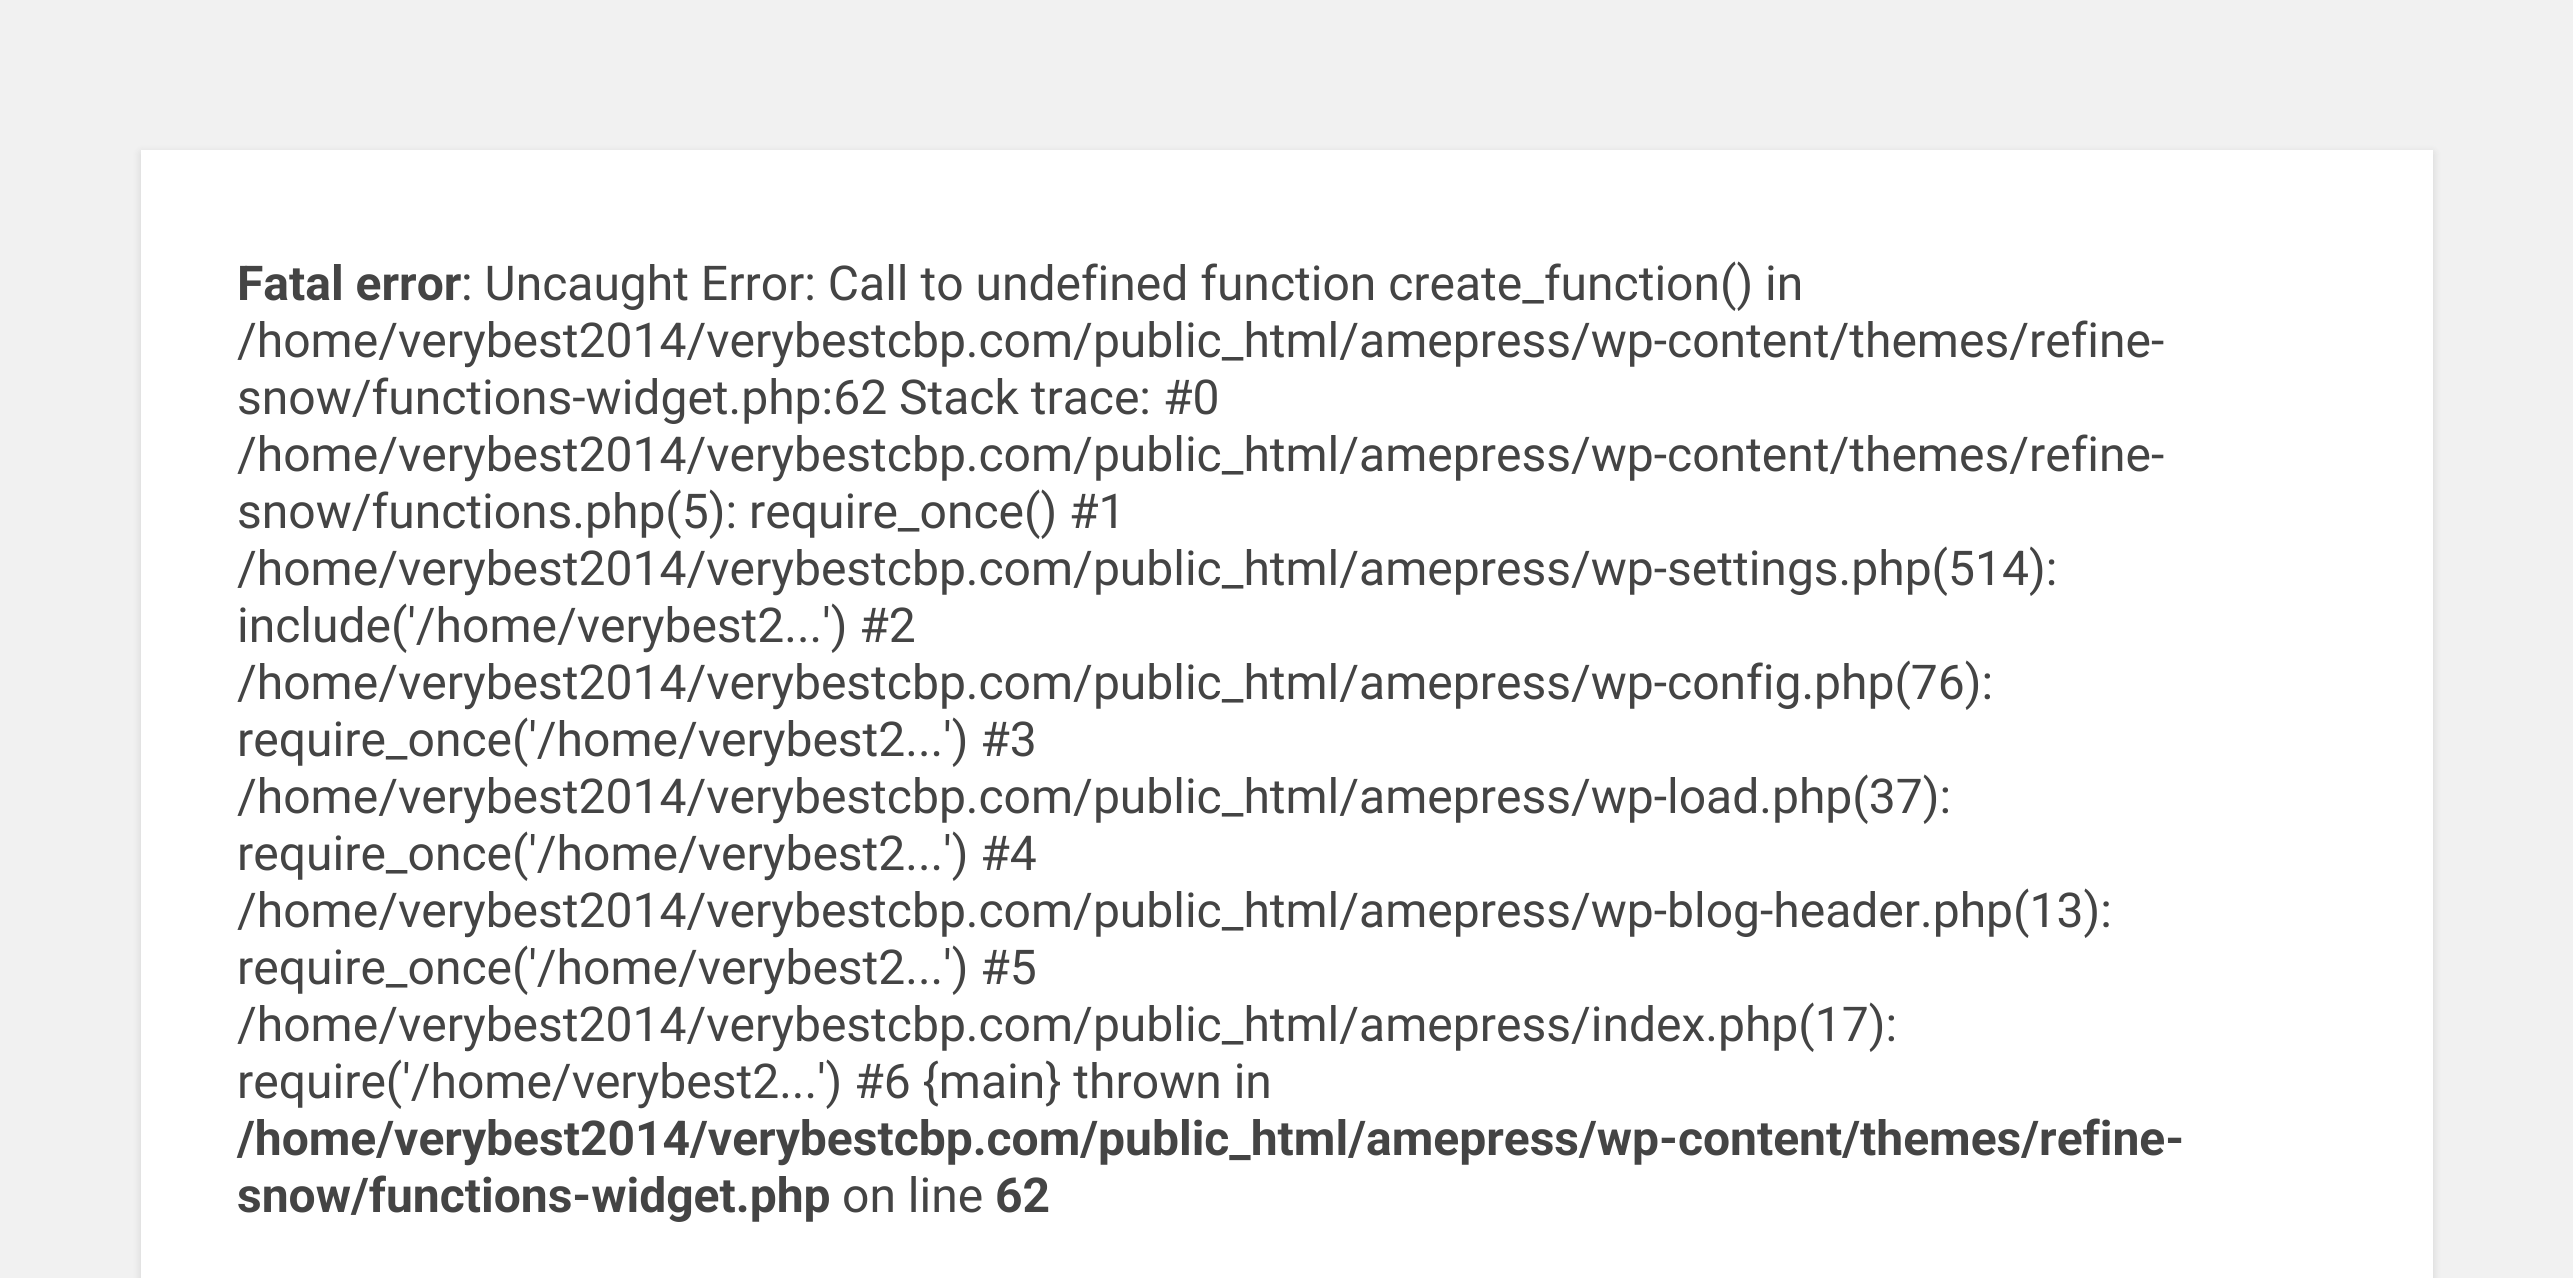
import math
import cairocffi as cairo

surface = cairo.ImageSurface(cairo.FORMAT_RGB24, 2573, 1278)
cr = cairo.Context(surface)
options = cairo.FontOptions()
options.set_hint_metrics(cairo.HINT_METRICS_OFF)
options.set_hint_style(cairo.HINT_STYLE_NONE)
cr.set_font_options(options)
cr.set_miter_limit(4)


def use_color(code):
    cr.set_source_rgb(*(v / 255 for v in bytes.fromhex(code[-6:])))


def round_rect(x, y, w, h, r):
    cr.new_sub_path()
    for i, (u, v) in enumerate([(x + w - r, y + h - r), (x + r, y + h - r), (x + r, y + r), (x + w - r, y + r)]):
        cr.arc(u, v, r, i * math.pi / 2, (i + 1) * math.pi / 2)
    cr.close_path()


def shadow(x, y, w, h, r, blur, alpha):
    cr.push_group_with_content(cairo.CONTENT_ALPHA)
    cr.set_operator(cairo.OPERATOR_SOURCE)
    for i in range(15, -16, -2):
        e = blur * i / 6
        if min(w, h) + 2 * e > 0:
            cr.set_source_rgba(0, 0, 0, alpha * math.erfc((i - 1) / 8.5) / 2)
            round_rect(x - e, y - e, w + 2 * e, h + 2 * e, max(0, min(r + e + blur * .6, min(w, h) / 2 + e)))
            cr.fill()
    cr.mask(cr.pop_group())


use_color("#f1f1f1")
cr.paint()
use_color("#000000")
shadow(141, 153, 2292, 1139, 0, 4.5, 0.13)
use_color("#ffffff")
cr.rectangle(141, 150, 2292, 1128)
cr.fill()
cr.select_font_face("Roboto", cairo.FONT_SLANT_NORMAL, cairo.FONT_WEIGHT_BOLD)
cr.set_font_size(48)
use_color("#444444")
cr.move_to(237, 300)
cr.show_text("Fatal error")
cr.select_font_face("Roboto")
cr.move_to(461, 300)
cr.show_text(": Uncaught Error: Call to undefined function create_function() in")
cr.move_to(237, 357)
cr.show_text("/home/verybest2014/verybestcbp.com/public_html/amepress/wp-content/themes/refine-")
cr.move_to(237, 414)
cr.show_text("snow/functions-widget.php:62 Stack trace: #0")
cr.move_to(237, 471)
cr.show_text("/home/verybest2014/verybestcbp.com/public_html/amepress/wp-content/themes/refine-")
cr.move_to(237, 528)
cr.show_text("snow/functions.php(5): require_once() #1")
cr.move_to(237, 585)
cr.show_text("/home/verybest2014/verybestcbp.com/public_html/amepress/wp-settings.php(514):")
cr.move_to(237, 642)
cr.show_text("include('/home/verybest2...') #2")
cr.move_to(237, 699)
cr.show_text("/home/verybest2014/verybestcbp.com/public_html/amepress/wp-config.php(76):")
cr.move_to(237, 756)
cr.show_text("require_once('/home/verybest2...') #3")
cr.move_to(237, 813)
cr.show_text("/home/verybest2014/verybestcbp.com/public_html/amepress/wp-load.php(37):")
cr.move_to(237, 870)
cr.show_text("require_once('/home/verybest2...') #4")
cr.move_to(237, 927)
cr.show_text("/home/verybest2014/verybestcbp.com/public_html/amepress/wp-blog-header.php(13):")
cr.move_to(237, 984)
cr.show_text("require_once('/home/verybest2...') #5")
cr.move_to(237, 1041)
cr.show_text("/home/verybest2014/verybestcbp.com/public_html/amepress/index.php(17):")
cr.move_to(237, 1098)
cr.show_text("require('/home/verybest2...') #6 {main} thrown in")
cr.select_font_face("Roboto", cairo.FONT_SLANT_NORMAL, cairo.FONT_WEIGHT_BOLD)
cr.move_to(237, 1155)
cr.show_text("/home/verybest2014/verybestcbp.com/public_html/amepress/wp-content/themes/refine-")
cr.move_to(237, 1212)
cr.show_text("snow/functions-widget.php")
cr.select_font_face("Roboto")
cr.move_to(842, 1212)
cr.show_text("on line")
cr.select_font_face("Roboto", cairo.FONT_SLANT_NORMAL, cairo.FONT_WEIGHT_BOLD)
cr.move_to(995, 1212)
cr.show_text("62")
surface.write_to_png("result.png")
